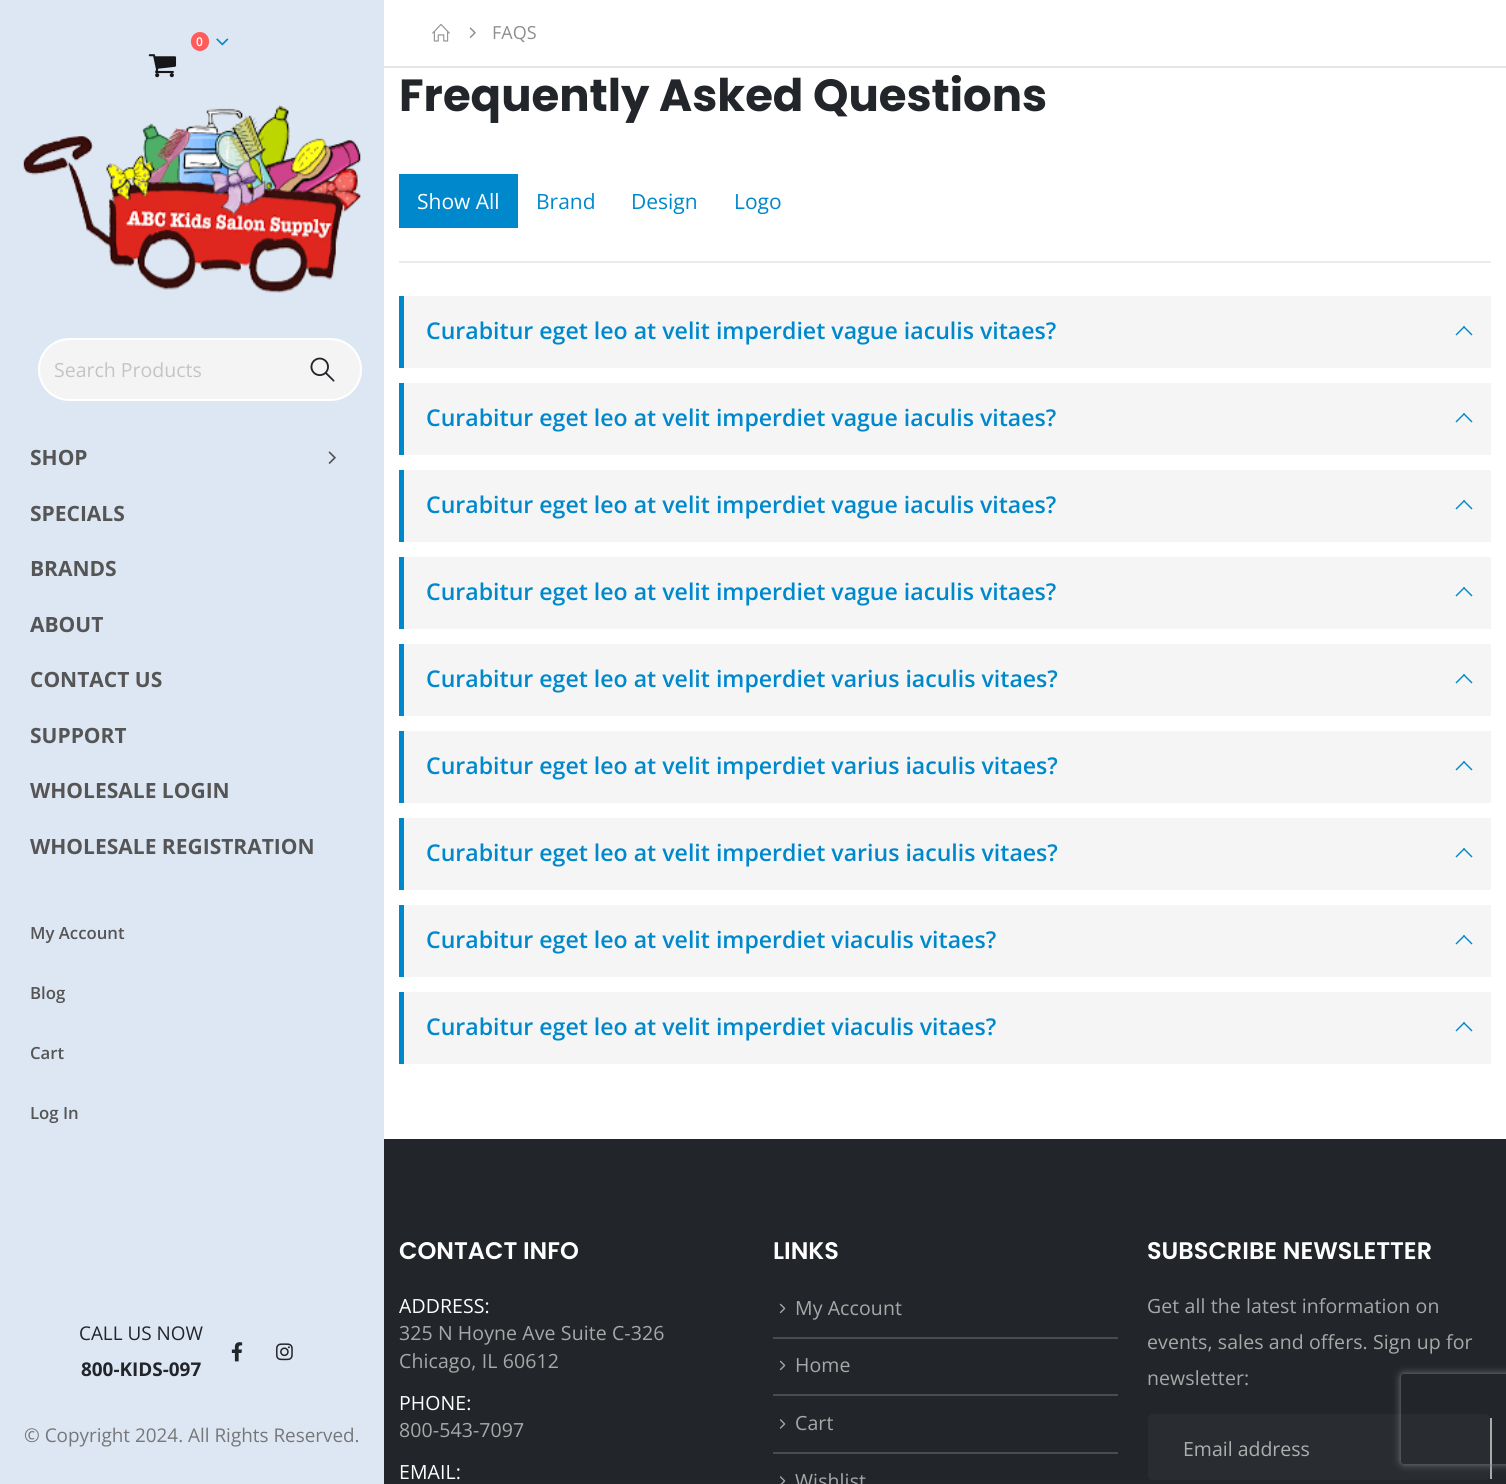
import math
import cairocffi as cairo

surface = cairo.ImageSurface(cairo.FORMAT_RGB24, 1506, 1484)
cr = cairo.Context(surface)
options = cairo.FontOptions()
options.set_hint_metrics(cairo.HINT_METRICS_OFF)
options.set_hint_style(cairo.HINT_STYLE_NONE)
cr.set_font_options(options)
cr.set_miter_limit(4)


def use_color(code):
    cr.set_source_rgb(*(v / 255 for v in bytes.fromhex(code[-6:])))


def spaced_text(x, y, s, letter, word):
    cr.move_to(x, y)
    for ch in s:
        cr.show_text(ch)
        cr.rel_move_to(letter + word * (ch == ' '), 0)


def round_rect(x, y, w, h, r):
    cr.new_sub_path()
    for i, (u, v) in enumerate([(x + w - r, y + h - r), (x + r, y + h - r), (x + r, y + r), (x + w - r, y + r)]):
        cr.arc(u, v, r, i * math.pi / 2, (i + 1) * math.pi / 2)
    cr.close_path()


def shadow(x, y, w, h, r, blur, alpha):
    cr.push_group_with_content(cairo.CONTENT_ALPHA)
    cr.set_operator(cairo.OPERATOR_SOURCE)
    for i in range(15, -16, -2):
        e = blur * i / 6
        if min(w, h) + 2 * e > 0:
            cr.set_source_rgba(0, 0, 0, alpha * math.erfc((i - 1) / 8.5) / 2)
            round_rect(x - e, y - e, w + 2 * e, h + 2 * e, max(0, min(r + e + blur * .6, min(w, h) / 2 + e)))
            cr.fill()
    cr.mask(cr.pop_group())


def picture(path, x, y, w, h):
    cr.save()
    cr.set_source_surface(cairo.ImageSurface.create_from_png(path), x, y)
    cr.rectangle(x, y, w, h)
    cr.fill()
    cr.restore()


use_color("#ffffff")
cr.paint()
use_color("#dde7f4")
cr.rectangle(0, 0, 384, 1484)
cr.fill()
use_color("#ff5b5b")
round_rect(191, 32, 18, 19, 9)
cr.fill()
cr.select_font_face("Open Sans SemiBold")
cr.set_font_size(12)
use_color("#ffffff")
cr.move_to(196, 46)
cr.show_text("0")
picture("img1.png", 148, 54, 29, 24)
picture("img2.png", 216, 38, 13, 8)
picture("img3.png", 22, 105, 340, 188)
use_color("#f4f4f4")
round_rect(39, 339, 322, 61, 30.5)
cr.fill_preserve()
use_color("#ffffff")
cr.stroke()
cr.select_font_face("Open Sans")
cr.set_font_size(19.5)
use_color("#c4c4c4")
cr.move_to(54, 377)
cr.show_text("Search Products")
picture("img4.png", 310, 357, 25, 25)
cr.select_font_face("Open Sans", cairo.FONT_SLANT_NORMAL, cairo.FONT_WEIGHT_BOLD)
cr.set_font_size(21)
use_color("#555555")
cr.move_to(30, 465)
cr.show_text("SHOP")
picture("img5.png", 328, 451, 8, 13)
cr.move_to(30, 521)
cr.show_text("SPECIALS")
cr.move_to(30, 576)
cr.show_text("BRANDS")
cr.move_to(30, 632)
cr.show_text("ABOUT")
cr.move_to(30, 687)
cr.show_text("CONTACT US")
cr.move_to(30, 743)
cr.show_text("SUPPORT")
cr.move_to(30, 798)
cr.show_text("WHOLESALE LOGIN")
cr.move_to(30, 854)
cr.show_text("WHOLESALE REGISTRATION")
cr.select_font_face("Open Sans SemiBold")
cr.set_font_size(16.75)
cr.move_to(30, 939)
cr.show_text("My Account")
cr.move_to(30, 999)
cr.show_text("Blog")
cr.move_to(30, 1059)
cr.show_text("Cart")
cr.move_to(30, 1119)
cr.show_text("Log In")
cr.select_font_face("Open Sans")
cr.set_font_size(18.9)
use_color("#222529")
cr.move_to(79, 1340)
cr.show_text("CALL US NOW")
cr.select_font_face("Open Sans", cairo.FONT_SLANT_NORMAL, cairo.FONT_WEIGHT_BOLD)
cr.move_to(81, 1376)
cr.show_text("800-KIDS-097")
picture("img6.png", 231, 1342, 12, 20)
picture("img7.png", 276, 1343, 17, 18)
cr.select_font_face("Open Sans")
use_color("#777777")
cr.move_to(24, 1442)
cr.show_text("© Copyright 2024. All Rights Reserved.")
use_color("#e6e6e6")
cr.rectangle(384, 66, 1122, 2)
cr.fill()
picture("img8.png", 432, 24, 18, 18)
picture("img9.png", 469, 27, 7, 11)
cr.set_font_size(18)
use_color("#8e8e8e")
cr.move_to(492, 39)
cr.show_text("FAQS")
cr.select_font_face("Poppins", cairo.FONT_SLANT_NORMAL, cairo.FONT_WEIGHT_BOLD)
cr.set_font_size(45)
use_color("#222529")
cr.move_to(399, 111)
cr.show_text("Frequently Asked Questions")
use_color("#0088cc")
cr.rectangle(399, 174, 119, 54)
cr.fill()
cr.select_font_face("Open Sans")
cr.set_font_size(21)
use_color("#ffffff")
cr.move_to(417, 209)
cr.show_text("Show All")
use_color("#0088cc")
cr.move_to(536, 209)
cr.show_text("Brand")
cr.move_to(631, 209)
cr.show_text("Design")
cr.move_to(734, 209)
cr.show_text("Logo")
use_color("#ebebeb")
cr.rectangle(399, 261, 1092, 2)
cr.fill()
use_color("#f5f5f5")
cr.rectangle(404, 296, 1087, 72)
cr.fill()
use_color("#0088cc")
cr.rectangle(399, 296, 5, 72)
cr.fill()
cr.select_font_face("Open Sans SemiBold")
cr.set_font_size(23.1)
cr.move_to(426, 339)
cr.show_text("Curabitur eget leo at velit imperdiet vague iaculis vitaes?")
cr.new_path()
cr.move_to(1455.5, 334.5)
cr.line_to(1464, 326)
cr.line_to(1465, 327)
cr.line_to(1456.5, 335.5)
cr.close_path()
cr.fill()
cr.new_path()
cr.move_to(1463, 327)
cr.line_to(1464, 326)
cr.line_to(1472.5, 334.5)
cr.line_to(1471.5, 335.5)
cr.close_path()
cr.fill()
use_color("#f5f5f5")
cr.rectangle(404, 383, 1087, 72)
cr.fill()
use_color("#0088cc")
cr.rectangle(399, 383, 5, 72)
cr.fill()
cr.move_to(426, 426)
cr.show_text("Curabitur eget leo at velit imperdiet vague iaculis vitaes?")
cr.new_path()
cr.move_to(1455.5, 421.5)
cr.line_to(1464, 413)
cr.line_to(1465, 414)
cr.line_to(1456.5, 422.5)
cr.close_path()
cr.fill()
cr.new_path()
cr.move_to(1463, 414)
cr.line_to(1464, 413)
cr.line_to(1472.5, 421.5)
cr.line_to(1471.5, 422.5)
cr.close_path()
cr.fill()
use_color("#f5f5f5")
cr.rectangle(404, 470, 1087, 72)
cr.fill()
use_color("#0088cc")
cr.rectangle(399, 470, 5, 72)
cr.fill()
cr.move_to(426, 513)
cr.show_text("Curabitur eget leo at velit imperdiet vague iaculis vitaes?")
cr.new_path()
cr.move_to(1455.5, 508.5)
cr.line_to(1464, 500)
cr.line_to(1465, 501)
cr.line_to(1456.5, 509.5)
cr.close_path()
cr.fill()
cr.new_path()
cr.move_to(1463, 501)
cr.line_to(1464, 500)
cr.line_to(1472.5, 508.5)
cr.line_to(1471.5, 509.5)
cr.close_path()
cr.fill()
use_color("#f5f5f5")
cr.rectangle(404, 557, 1087, 72)
cr.fill()
use_color("#0088cc")
cr.rectangle(399, 557, 5, 72)
cr.fill()
cr.move_to(426, 600)
cr.show_text("Curabitur eget leo at velit imperdiet vague iaculis vitaes?")
cr.new_path()
cr.move_to(1455.5, 595.5)
cr.line_to(1464, 587)
cr.line_to(1465, 588)
cr.line_to(1456.5, 596.5)
cr.close_path()
cr.fill()
cr.new_path()
cr.move_to(1463, 588)
cr.line_to(1464, 587)
cr.line_to(1472.5, 595.5)
cr.line_to(1471.5, 596.5)
cr.close_path()
cr.fill()
use_color("#f5f5f5")
cr.rectangle(404, 644, 1087, 72)
cr.fill()
use_color("#0088cc")
cr.rectangle(399, 644, 5, 72)
cr.fill()
cr.move_to(426, 687)
cr.show_text("Curabitur eget leo at velit imperdiet varius iaculis vitaes?")
cr.new_path()
cr.move_to(1455.5, 682.5)
cr.line_to(1464, 674)
cr.line_to(1465, 675)
cr.line_to(1456.5, 683.5)
cr.close_path()
cr.fill()
cr.new_path()
cr.move_to(1463, 675)
cr.line_to(1464, 674)
cr.line_to(1472.5, 682.5)
cr.line_to(1471.5, 683.5)
cr.close_path()
cr.fill()
use_color("#f5f5f5")
cr.rectangle(404, 731, 1087, 72)
cr.fill()
use_color("#0088cc")
cr.rectangle(399, 731, 5, 72)
cr.fill()
cr.move_to(426, 774)
cr.show_text("Curabitur eget leo at velit imperdiet varius iaculis vitaes?")
cr.new_path()
cr.move_to(1455.5, 769.5)
cr.line_to(1464, 761)
cr.line_to(1465, 762)
cr.line_to(1456.5, 770.5)
cr.close_path()
cr.fill()
cr.new_path()
cr.move_to(1463, 762)
cr.line_to(1464, 761)
cr.line_to(1472.5, 769.5)
cr.line_to(1471.5, 770.5)
cr.close_path()
cr.fill()
use_color("#f5f5f5")
cr.rectangle(404, 818, 1087, 72)
cr.fill()
use_color("#0088cc")
cr.rectangle(399, 818, 5, 72)
cr.fill()
cr.move_to(426, 861)
cr.show_text("Curabitur eget leo at velit imperdiet varius iaculis vitaes?")
cr.new_path()
cr.move_to(1455.5, 856.5)
cr.line_to(1464, 848)
cr.line_to(1465, 849)
cr.line_to(1456.5, 857.5)
cr.close_path()
cr.fill()
cr.new_path()
cr.move_to(1463, 849)
cr.line_to(1464, 848)
cr.line_to(1472.5, 856.5)
cr.line_to(1471.5, 857.5)
cr.close_path()
cr.fill()
use_color("#f5f5f5")
cr.rectangle(404, 905, 1087, 72)
cr.fill()
use_color("#0088cc")
cr.rectangle(399, 905, 5, 72)
cr.fill()
cr.move_to(426, 948)
cr.show_text("Curabitur eget leo at velit imperdiet viaculis vitaes?")
cr.new_path()
cr.move_to(1455.5, 943.5)
cr.line_to(1464, 935)
cr.line_to(1465, 936)
cr.line_to(1456.5, 944.5)
cr.close_path()
cr.fill()
cr.new_path()
cr.move_to(1463, 936)
cr.line_to(1464, 935)
cr.line_to(1472.5, 943.5)
cr.line_to(1471.5, 944.5)
cr.close_path()
cr.fill()
use_color("#f5f5f5")
cr.rectangle(404, 992, 1087, 72)
cr.fill()
use_color("#0088cc")
cr.rectangle(399, 992, 5, 72)
cr.fill()
cr.move_to(426, 1035)
cr.show_text("Curabitur eget leo at velit imperdiet viaculis vitaes?")
cr.new_path()
cr.move_to(1455.5, 1030.5)
cr.line_to(1464, 1022)
cr.line_to(1465, 1023)
cr.line_to(1456.5, 1031.5)
cr.close_path()
cr.fill()
cr.new_path()
cr.move_to(1463, 1023)
cr.line_to(1464, 1022)
cr.line_to(1472.5, 1030.5)
cr.line_to(1471.5, 1031.5)
cr.close_path()
cr.fill()
use_color("#222529")
cr.rectangle(384, 1139, 1122, 345)
cr.fill()
cr.select_font_face("Poppins SemiBold")
cr.set_font_size(24)
use_color("#ffffff")
cr.move_to(399, 1259)
cr.show_text("CONTACT INFO")
cr.select_font_face("Open Sans")
cr.set_font_size(19.5)
spaced_text(399, 1313, "ADDRESS:", 0.1, 0)
use_color("#a8a8a8")
spaced_text(399, 1340, "325 N Hoyne Ave Suite C-326", 0.1, 0)
spaced_text(399, 1368, "Chicago, IL 60612", 0.1, 0)
use_color("#ffffff")
spaced_text(399, 1410, "PHONE:", 0.1, 0)
use_color("#a8a8a8")
spaced_text(399, 1437, "800-543-7097", 0.1, 0)
use_color("#ffffff")
spaced_text(399, 1479, "EMAIL:", 0.1, 0)
cr.select_font_face("Poppins SemiBold")
cr.set_font_size(24)
cr.move_to(773, 1259)
cr.show_text("LINKS")
picture("img10.png", 779, 1303, 7, 11)
cr.select_font_face("Open Sans")
cr.set_font_size(19.5)
use_color("#a8a8a8")
spaced_text(795, 1315, "My Account", 0.1, 0)
use_color("#4a4c4f")
cr.rectangle(773, 1337, 345, 2)
cr.fill()
picture("img10.png", 779, 1360, 7, 11)
use_color("#a8a8a8")
spaced_text(795, 1372, "Home", 0.1, 0)
use_color("#4a4c4f")
cr.rectangle(773, 1394, 345, 2)
cr.fill()
picture("img11.png", 779, 1419, 7, 10)
use_color("#a8a8a8")
spaced_text(795, 1430, "Cart", 0.1, 0)
use_color("#4a4c4f")
cr.rectangle(773, 1452, 345, 2)
cr.fill()
picture("img12.png", 779, 1476, 7, 8)
use_color("#a8a8a8")
spaced_text(795, 1488, "Wishlist", 0.1, 0)
cr.select_font_face("Poppins SemiBold")
cr.set_font_size(24)
use_color("#ffffff")
cr.move_to(1147, 1259)
cr.show_text("SUBSCRIBE NEWSLETTER")
cr.select_font_face("Open Sans")
cr.set_font_size(19.5)
use_color("#a8a8a8")
spaced_text(1147, 1313, "Get all the latest information on", 0.1, 0)
spaced_text(1147, 1349, "events, sales and offers. Sign up for", 0.1, 0)
spaced_text(1147, 1385, "newsletter:", 0.1, 0)
use_color("#292c30")
cr.new_path()
cr.move_to(1152, 1414)
cr.line_to(1486, 1414)
cr.curve_to(1488, 1414, 1490, 1417, 1490, 1419)
cr.line_to(1490, 1476)
cr.curve_to(1490, 1478, 1488, 1480, 1486, 1480)
cr.line_to(1152, 1480)
cr.curve_to(1150, 1480, 1148, 1478, 1148, 1476)
cr.line_to(1148, 1419)
cr.curve_to(1148, 1417, 1150, 1414, 1152, 1414)
cr.close_path()
cr.fill()
use_color("#aaaaaa")
cr.rectangle(1490, 1418, 2, 61)
cr.fill()
use_color("#afafaf")
cr.move_to(1183, 1456)
cr.show_text("Email address")
cr.save()
cr.set_fill_rule(cairo.FILL_RULE_EVEN_ODD)
cr.new_path()
cr.move_to(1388, 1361)
cr.line_to(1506, 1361)
cr.line_to(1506, 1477)
cr.line_to(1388, 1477)
cr.close_path()
cr.move_to(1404, 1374)
cr.line_to(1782, 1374)
cr.curve_to(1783.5, 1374, 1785, 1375.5, 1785, 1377)
cr.line_to(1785, 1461)
cr.curve_to(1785, 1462.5, 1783.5, 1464, 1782, 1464)
cr.line_to(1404, 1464)
cr.curve_to(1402.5, 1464, 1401, 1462.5, 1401, 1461)
cr.line_to(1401, 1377)
cr.curve_to(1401, 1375.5, 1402.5, 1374, 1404, 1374)
cr.close_path()
cr.clip()
use_color("#808080")
shadow(1401, 1374, 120, 90, 3, 4, 1)
cr.restore()
surface.write_to_png("result.png")
